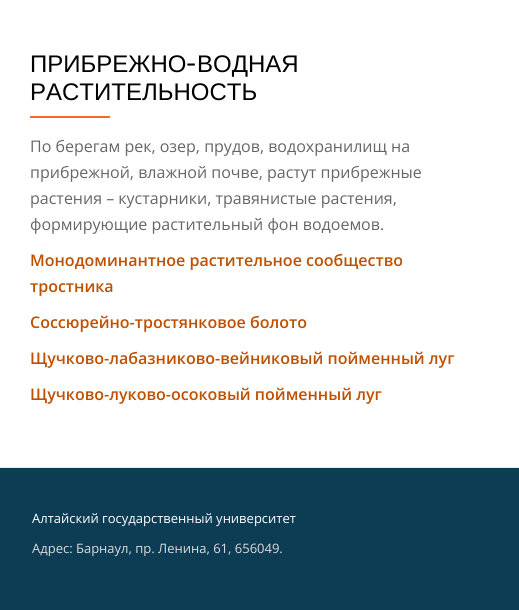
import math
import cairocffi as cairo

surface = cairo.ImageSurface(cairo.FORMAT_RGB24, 519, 610)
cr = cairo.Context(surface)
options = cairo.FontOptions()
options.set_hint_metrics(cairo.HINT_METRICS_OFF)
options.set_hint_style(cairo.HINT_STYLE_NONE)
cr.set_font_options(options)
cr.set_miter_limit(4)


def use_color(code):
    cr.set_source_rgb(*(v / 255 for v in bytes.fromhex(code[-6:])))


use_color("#ffffff")
cr.paint()
cr.select_font_face("Liberation Sans")
cr.set_font_size(24)
use_color("#000000")
cr.move_to(30, 72)
cr.show_text("ПРИБРЕЖНО")
cr.select_font_face("Cabin")
cr.move_to(186, 72)
cr.show_text("-")
cr.select_font_face("Liberation Sans")
cr.move_to(197, 72)
cr.show_text("ВОДНАЯ")
cr.move_to(30, 100)
cr.show_text("РАСТИТЕЛЬНОСТЬ")
use_color("#f16c20")
cr.rectangle(30, 116, 80, 2)
cr.fill()
cr.select_font_face("Open Sans")
cr.set_font_size(16)
use_color("#666666")
cr.move_to(30, 152)
cr.show_text("По берегам рек, озер, прудов, водохранилищ на")
cr.move_to(30, 178)
cr.show_text("прибрежной, влажной почве, растут прибрежные")
cr.move_to(30, 204)
cr.show_text("растения – кустарники, травянистые растения,")
cr.move_to(30, 230)
cr.show_text("формирующие растительный фон водоемов.")
cr.select_font_face("Open Sans SemiBold")
use_color("#be5000")
cr.move_to(30, 266)
cr.show_text("Монодоминантное растительное сообщество")
cr.move_to(30, 292)
cr.show_text("тростника")
cr.move_to(30, 328)
cr.show_text("Соссюрейно-тростянковое болото")
cr.move_to(30, 364)
cr.show_text("Щучково-лабазниково-вейниковый пойменный луг")
cr.move_to(30, 400)
cr.show_text("Щучково-луково-осоковый пойменный луг")
use_color("#0d3c55")
cr.rectangle(0, 468, 519, 142)
cr.fill()
use_color("#eaebec")
cr.rectangle(0, 467, 519, 1)
cr.fill()
cr.select_font_face("Open Sans")
cr.set_font_size(13)
use_color("#ffffff")
cr.move_to(32, 523)
cr.show_text("Алтайский государственный университет")
use_color("#dbdbdb")
cr.move_to(32, 553)
cr.show_text("Адрес: Барнаул, пр. Ленина, 61, 656049.")
surface.write_to_png("result.png")
